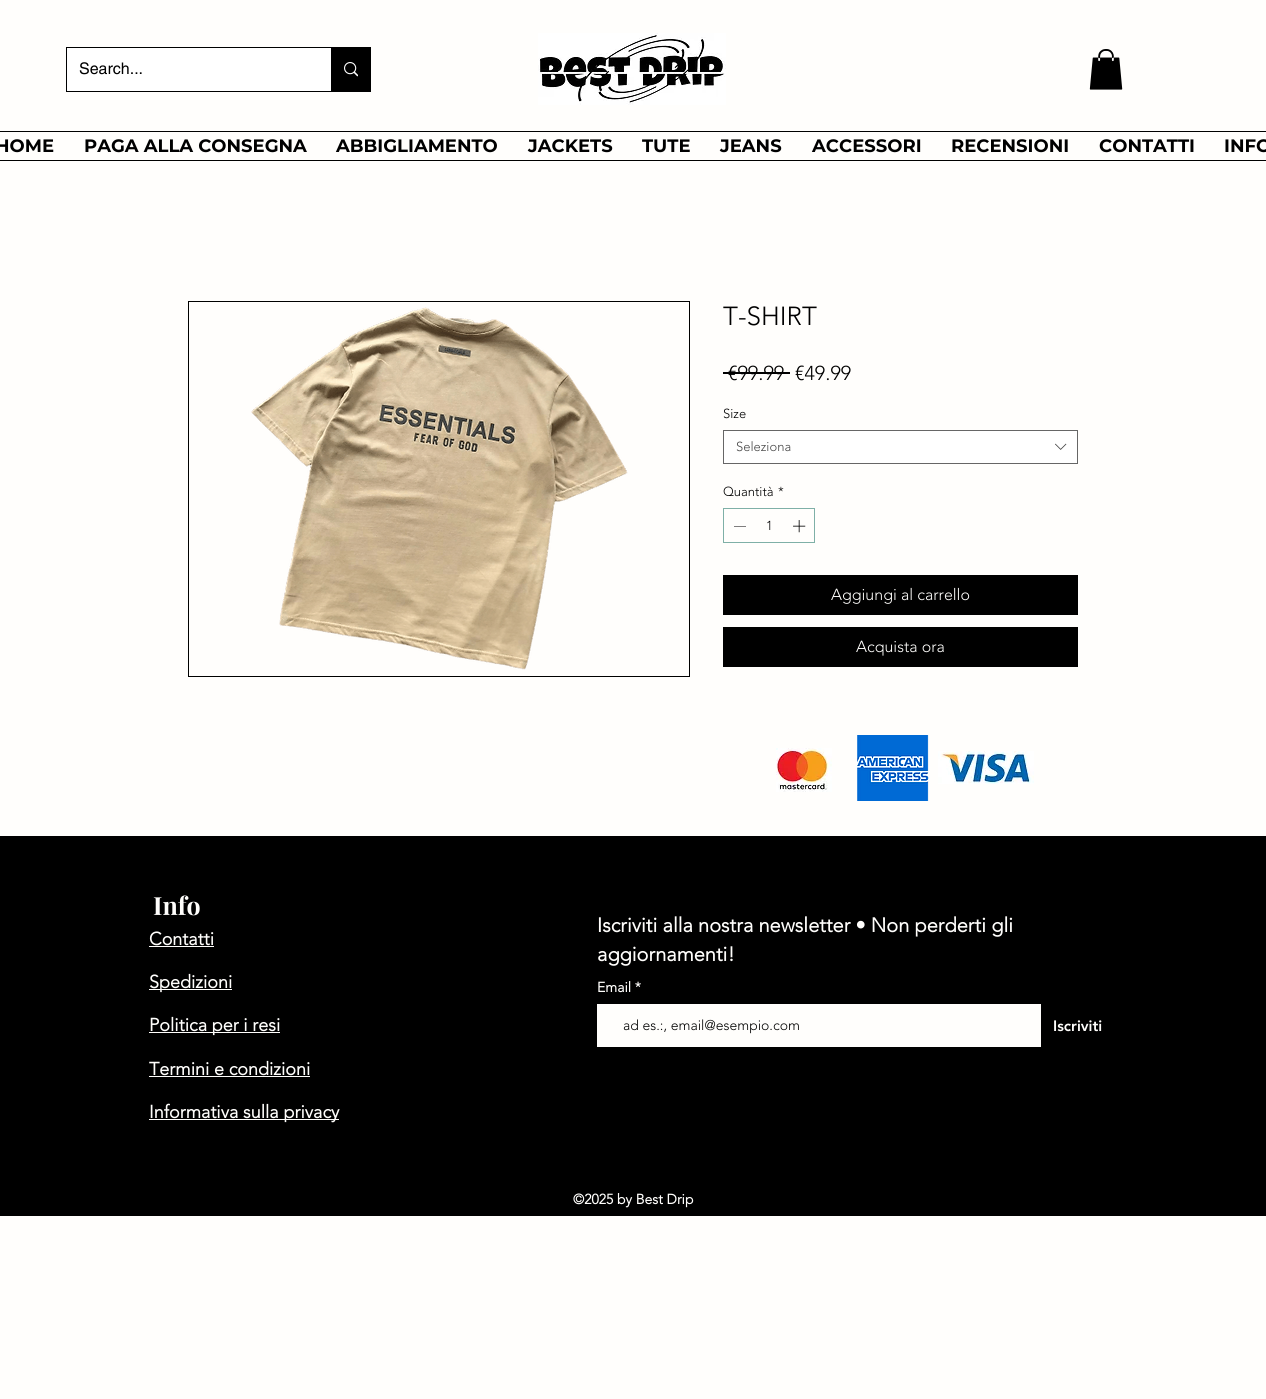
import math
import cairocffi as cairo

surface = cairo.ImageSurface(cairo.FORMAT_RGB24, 1266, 1399)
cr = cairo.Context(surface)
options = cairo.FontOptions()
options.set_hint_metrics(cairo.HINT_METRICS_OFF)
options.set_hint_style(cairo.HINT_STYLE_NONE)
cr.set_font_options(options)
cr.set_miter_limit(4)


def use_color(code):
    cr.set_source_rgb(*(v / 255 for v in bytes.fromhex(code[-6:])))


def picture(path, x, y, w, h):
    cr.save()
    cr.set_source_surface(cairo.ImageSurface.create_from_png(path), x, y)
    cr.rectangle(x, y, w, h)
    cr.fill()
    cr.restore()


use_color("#fffefc")
cr.paint()
cr.rectangle(66.5, 47.5, 304, 44)
use_color("#000000")
cr.set_line_width(1)
cr.stroke()
use_color("#ffffff")
cr.rectangle(67, 48, 264, 43)
cr.fill()
cr.select_font_face("helvetica")
cr.set_font_size(16)
use_color("#000000")
cr.move_to(79, 74)
cr.show_text("Search...")
cr.rectangle(331, 48, 39, 43)
cr.fill()
picture("img1.png", 344, 62, 14, 15)
picture("img2.png", 538, 33, 188, 72)
picture("img3.png", 1089, 49, 34, 41)
cr.rectangle(0, 131, 1266, 1)
cr.fill()
cr.rectangle(0, 160, 1266, 1)
cr.fill()
cr.select_font_face("Montserrat", cairo.FONT_SLANT_NORMAL, cairo.FONT_WEIGHT_BOLD)
cr.set_font_size(18)
cr.move_to(-5, 152)
cr.show_text("HOME")
cr.move_to(84, 152)
cr.show_text("PAGA ALLA CONSEGNA")
cr.move_to(336, 152)
cr.show_text("ABBIGLIAMENTO")
cr.move_to(528, 152)
cr.show_text("JACKETS")
cr.move_to(642, 152)
cr.show_text("TUTE")
cr.move_to(720, 152)
cr.show_text("JEANS")
cr.move_to(812, 152)
cr.show_text("ACCESSORI")
cr.move_to(951, 152)
cr.show_text("RECENSIONI")
cr.move_to(1099, 152)
cr.show_text("CONTATTI")
cr.move_to(1224, 152)
cr.show_text("INFO")
cr.rectangle(188.5, 301.5, 501, 375)
cr.stroke()
picture("img4.png", 251, 307, 377, 363)
cr.select_font_face("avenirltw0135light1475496 Light")
cr.set_font_size(26)
cr.move_to(723, 325)
cr.show_text("T-SHIRT")
cr.set_font_size(20)
cr.move_to(728, 380)
cr.show_text("€99.99")
cr.rectangle(723, 372, 67, 2)
cr.fill()
cr.move_to(795, 380)
cr.show_text("€49.99")
cr.set_font_size(13)
cr.move_to(723, 418)
cr.show_text("Size")
use_color("#ffffff")
cr.rectangle(723.5, 430.5, 354, 33)
cr.fill_preserve()
use_color("#666666")
cr.stroke()
use_color("#444444")
cr.move_to(736, 451)
cr.show_text("Seleziona")
picture("img5.png", 1055, 443, 12, 7)
use_color("#000000")
cr.move_to(723, 496)
cr.show_text("Quantità")
cr.move_to(778, 496)
cr.show_text("*")
cr.rectangle(723.5, 508.5, 91, 34)
use_color("#7fb0a7")
cr.stroke()
use_color("#000000")
cr.set_fill_rule(cairo.FILL_RULE_EVEN_ODD)
cr.new_path()
cr.move_to(746, 526)
cr.line_to(746, 526.5)
cr.line_to(734, 526.5)
cr.line_to(734, 526)
cr.close_path()
cr.fill()
cr.move_to(766, 530)
cr.show_text("1")
picture("img6.png", 793, 520, 13, 13)
cr.rectangle(723, 575, 355, 40)
cr.fill()
cr.set_font_size(16)
use_color("#fffefc")
cr.move_to(831, 600)
cr.show_text("Aggiungi al carrello")
use_color("#000000")
cr.rectangle(723, 627, 355, 40)
cr.fill()
use_color("#fffefc")
cr.move_to(856, 652)
cr.show_text("Acquista ora")
picture("img7.png", 776, 748, 56, 44)
picture("img8.png", 857, 735, 72, 66)
picture("img9.png", 938, 751, 96, 33)
use_color("#000000")
cr.rectangle(0, 836, 1266, 380)
cr.fill()
cr.select_font_face("Playfair Display", cairo.FONT_SLANT_NORMAL, cairo.FONT_WEIGHT_BOLD)
cr.set_font_size(25)
use_color("#fffefc")
cr.move_to(153, 915)
cr.show_text("Info")
cr.select_font_face("avenirltw0135light1475496", cairo.FONT_SLANT_NORMAL, cairo.FONT_WEIGHT_BOLD)
cr.set_font_size(18)
cr.move_to(149, 945)
cr.show_text("Contatti")
cr.rectangle(149, 946, 65, 1)
cr.fill()
cr.rectangle(149, 989, 83, 1)
cr.fill()
cr.move_to(149, 988)
cr.show_text("Spedizioni")
cr.rectangle(149, 1032, 131, 1)
cr.fill()
cr.move_to(149, 1031)
cr.show_text("Politica per i resi")
cr.move_to(149, 1075)
cr.show_text("Termini e condizioni")
cr.rectangle(149, 1076, 161, 1)
cr.fill()
cr.rectangle(149, 1119, 190, 1)
cr.fill()
cr.move_to(149, 1118)
cr.show_text("Informativa sulla privacy")
cr.set_font_size(20)
cr.move_to(597, 932)
cr.show_text("Iscriviti alla nostra newsletter • Non perderti gli")
cr.move_to(597, 961)
cr.show_text("aggiornamenti!")
cr.set_font_size(14)
cr.move_to(597, 992)
cr.show_text("Email *")
cr.rectangle(597, 1004, 444, 43)
cr.fill()
cr.select_font_face("avenirltw0135light1475496 Light")
use_color("#000000")
cr.move_to(623, 1030)
cr.show_text("ad es.:, email@esempio.com")
cr.select_font_face("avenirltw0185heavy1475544 Black")
cr.set_font_size(15)
use_color("#fffefc")
cr.move_to(1053, 1031)
cr.show_text("Iscriviti")
cr.select_font_face("avenirltw0135light1475496", cairo.FONT_SLANT_NORMAL, cairo.FONT_WEIGHT_BOLD)
cr.set_font_size(14)
cr.move_to(573, 1204)
cr.show_text("©2025 by Best Drip")
surface.write_to_png("result.png")
